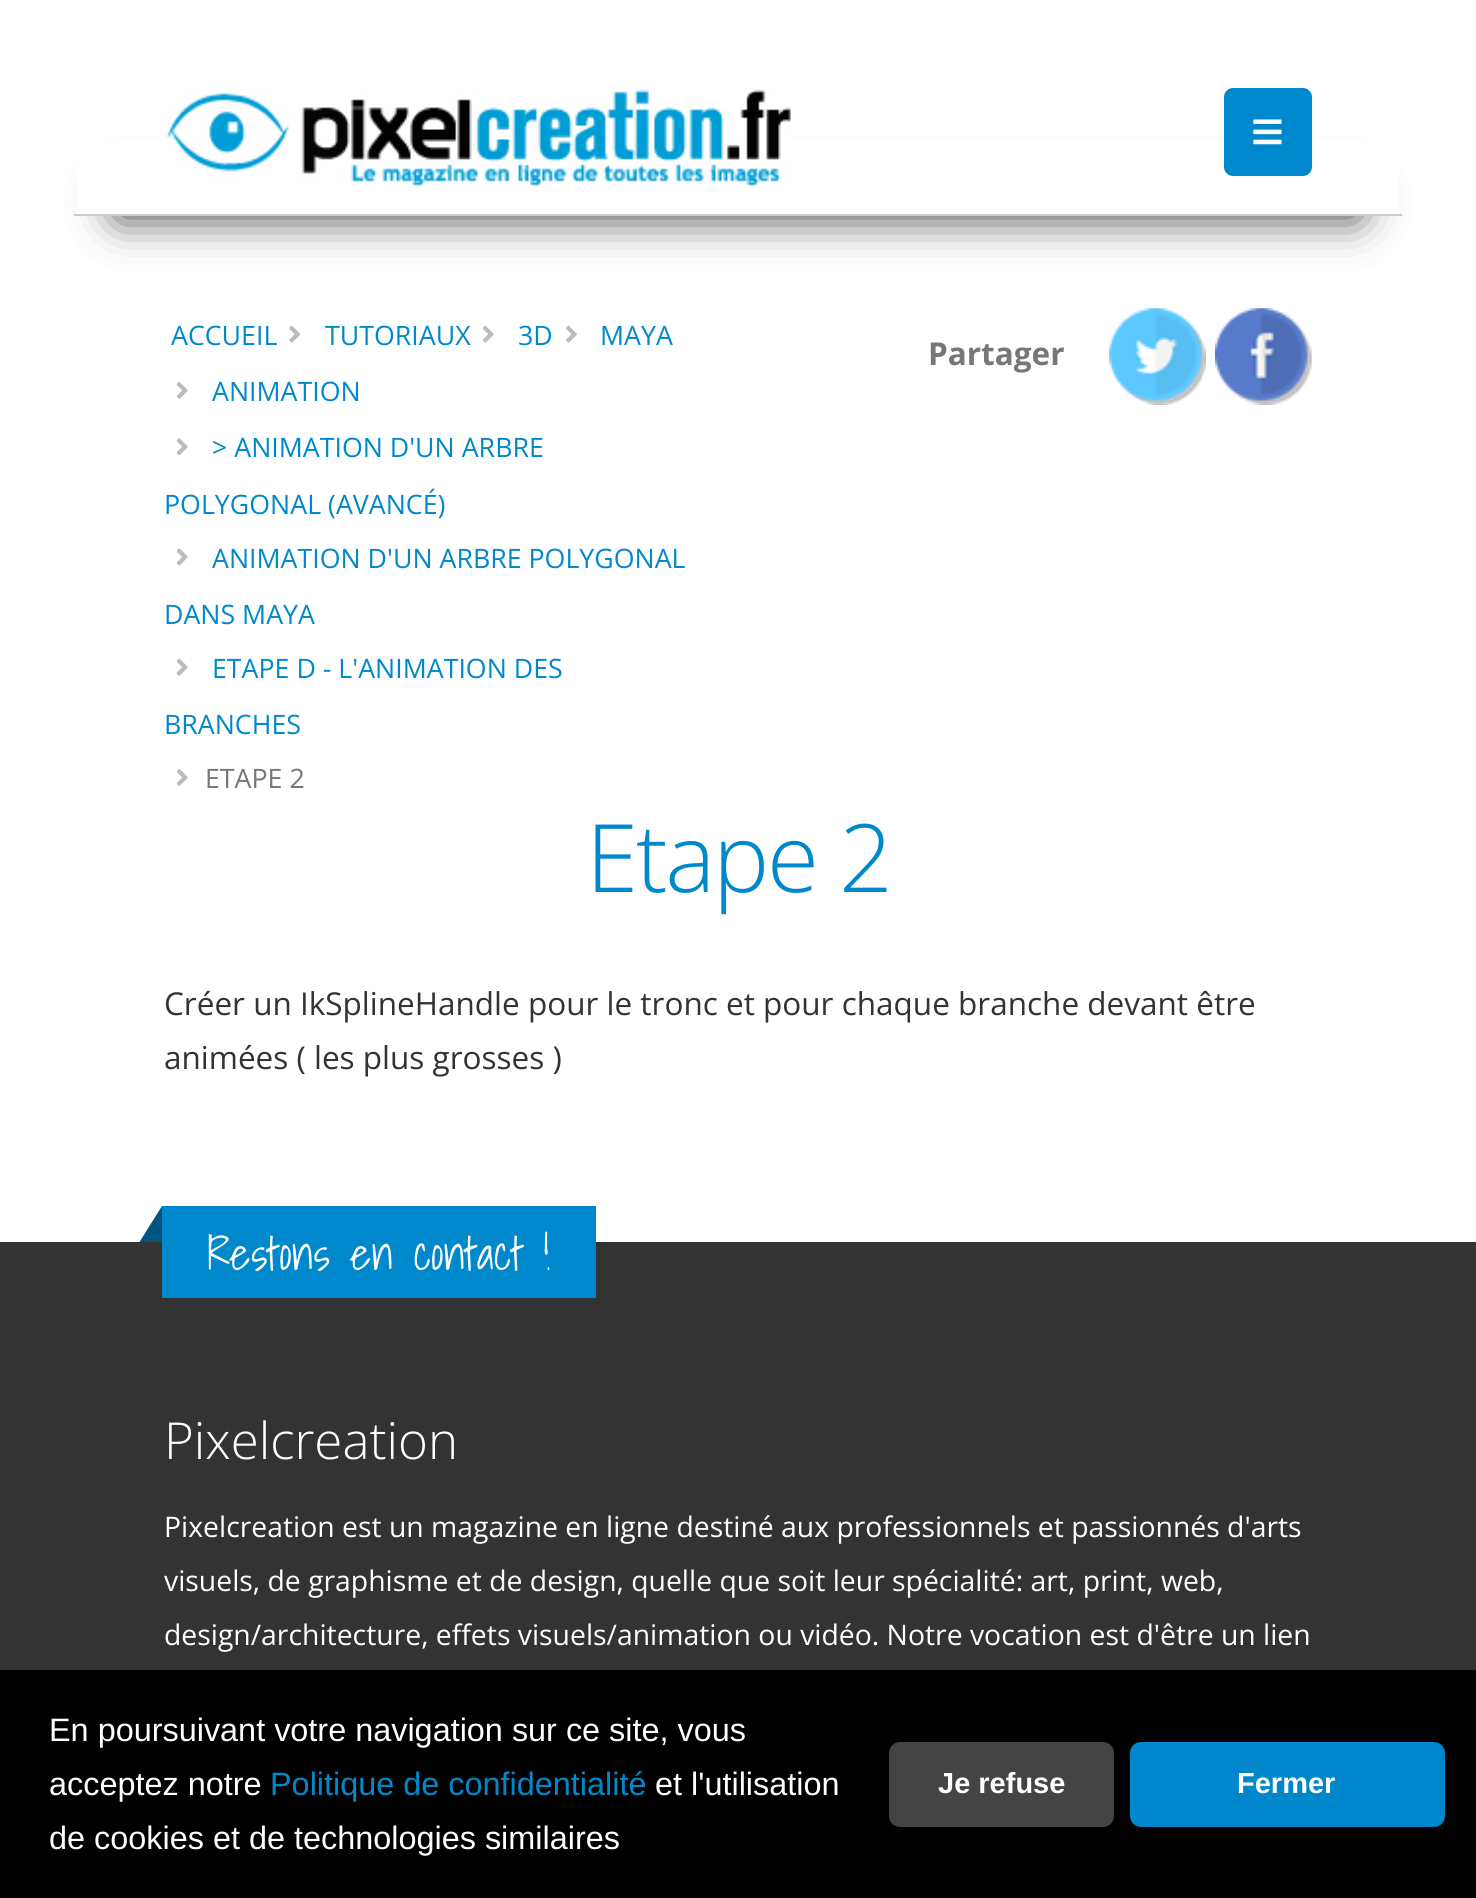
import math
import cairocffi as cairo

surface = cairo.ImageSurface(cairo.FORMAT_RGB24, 1476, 1898)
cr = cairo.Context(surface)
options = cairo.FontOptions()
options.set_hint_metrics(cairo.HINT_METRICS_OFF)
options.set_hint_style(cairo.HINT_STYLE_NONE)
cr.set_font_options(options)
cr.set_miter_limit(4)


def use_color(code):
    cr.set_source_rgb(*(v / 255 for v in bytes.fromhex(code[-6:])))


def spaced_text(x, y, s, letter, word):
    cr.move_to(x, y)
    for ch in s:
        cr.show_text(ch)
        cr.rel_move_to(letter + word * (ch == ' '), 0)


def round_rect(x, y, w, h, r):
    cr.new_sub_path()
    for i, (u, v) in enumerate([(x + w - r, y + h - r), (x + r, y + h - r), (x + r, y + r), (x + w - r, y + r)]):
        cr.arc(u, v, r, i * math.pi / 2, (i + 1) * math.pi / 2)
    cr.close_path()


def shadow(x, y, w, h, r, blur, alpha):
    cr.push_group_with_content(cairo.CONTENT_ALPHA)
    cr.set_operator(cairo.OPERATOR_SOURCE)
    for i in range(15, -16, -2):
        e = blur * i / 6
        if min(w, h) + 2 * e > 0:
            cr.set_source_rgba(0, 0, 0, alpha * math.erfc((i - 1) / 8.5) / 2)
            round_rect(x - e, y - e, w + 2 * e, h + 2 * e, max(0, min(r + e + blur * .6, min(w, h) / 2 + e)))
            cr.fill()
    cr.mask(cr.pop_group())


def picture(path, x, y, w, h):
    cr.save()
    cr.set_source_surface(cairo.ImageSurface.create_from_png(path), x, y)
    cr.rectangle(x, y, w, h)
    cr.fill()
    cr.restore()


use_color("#ffffff")
cr.paint()
use_color("#333333")
shadow(119, 191, 1238, 25, 0, 22.5, 1)
use_color("#ffffff")
cr.rectangle(77, 141, 1322, 73)
cr.fill()
picture("img1.png", 166, 89, 625, 97)
use_color("#0088cc")
round_rect(1224, 88, 88, 88, 9)
cr.fill()
picture("img2.png", 1253, 119, 29, 26)
use_color("#cccccc")
cr.rectangle(74, 214, 1328, 2)
cr.fill()
cr.select_font_face("Open Sans")
cr.set_font_size(26.75)
use_color("#0088cc")
cr.move_to(171, 345)
cr.show_text("ACCUEIL")
picture("img3.png", 289, 325, 11, 18)
cr.move_to(325, 345)
cr.show_text("TUTORIAUX")
picture("img4.png", 482, 325, 12, 18)
cr.move_to(518, 345)
cr.show_text("3D")
picture("img5.png", 566, 325, 11, 18)
cr.move_to(600, 345)
cr.show_text("MAYA")
picture("img6.png", 176, 382, 12, 17)
cr.move_to(212, 401)
cr.show_text("ANIMATION")
picture("img7.png", 176, 438, 12, 17)
cr.move_to(212, 457)
cr.show_text("> ANIMATION D'UN ARBRE")
cr.move_to(164, 514)
cr.show_text("POLYGONAL (AVANCÉ)")
picture("img8.png", 176, 548, 12, 18)
cr.move_to(212, 568)
cr.show_text("ANIMATION D'UN ARBRE POLYGONAL")
cr.move_to(164, 624)
cr.show_text("DANS MAYA")
picture("img4.png", 176, 658, 12, 18)
cr.move_to(212, 678)
cr.show_text("ETAPE D - L'ANIMATION DES")
cr.move_to(164, 734)
cr.show_text("BRANCHES")
picture("img6.png", 176, 769, 12, 17)
use_color("#777777")
cr.move_to(205, 788)
cr.show_text("ETAPE 2")
cr.select_font_face("Open Sans", cairo.FONT_SLANT_NORMAL, cairo.FONT_WEIGHT_BOLD)
cr.set_font_size(31.5)
cr.move_to(928, 365)
cr.show_text("Partager")
picture("img9.png", 1109, 308, 97, 97)
picture("img10.png", 1215, 308, 97, 97)
cr.select_font_face("Open Sans Light")
cr.set_font_size(94.5)
use_color("#0088cc")
spaced_text(586, 892, "Etape 2", -2.25, 0)
cr.select_font_face("Open Sans")
cr.set_font_size(31.5)
use_color("#333333")
cr.move_to(164, 1015)
cr.show_text("Créer un IkSplineHandle pour le tronc et pour chaque branche devant être")
cr.move_to(164, 1069)
cr.show_text("animées ( les plus grosses )")
cr.rectangle(0, 1242, 1476, 428)
cr.fill()
use_color("#0088cc")
cr.rectangle(162, 1206, 434, 92)
cr.fill()
use_color("#005580")
cr.new_path()
cr.move_to(162, 1206)
cr.line_to(162, 1242)
cr.line_to(139.5, 1242)
cr.close_path()
cr.fill()
cr.select_font_face("Shadows Into Light")
cr.set_font_size(45.25)
use_color("#ffffff")
cr.move_to(207, 1270)
cr.show_text("Restons en contact !")
cr.select_font_face("Open Sans Light")
cr.set_font_size(51)
cr.move_to(164, 1459)
cr.show_text("Pixelcreation")
cr.select_font_face("Open Sans")
cr.set_font_size(28.35)
cr.move_to(164, 1537)
cr.show_text("Pixelcreation est un magazine en ligne destiné aux professionnels et passionnés d'arts")
cr.move_to(164, 1591)
cr.show_text("visuels, de graphisme et de design, quelle que soit leur spécialité: art, print, web,")
cr.move_to(164, 1645)
cr.show_text("design/architecture, effets visuels/animation ou vidéo. Notre vocation est d'être un lien")
use_color("#000000")
cr.rectangle(0, 1670, 1476, 228)
cr.fill()
cr.select_font_face("Liberation Sans")
cr.set_font_size(32.4)
use_color("#ffffff")
cr.move_to(49, 1741)
cr.show_text("En poursuivant votre navigation sur ce site, vous")
cr.move_to(49, 1795)
cr.show_text("acceptez notre")
use_color("#0088cc")
cr.move_to(270, 1795)
cr.show_text("Politique de confidentialité")
use_color("#ffffff")
cr.move_to(655, 1795)
cr.show_text("et l'utilisation")
cr.move_to(49, 1849)
cr.show_text("de cookies et de technologies similaires")
use_color("#444444")
round_rect(889, 1742, 225, 85, 11)
cr.fill()
cr.select_font_face("Liberation Sans", cairo.FONT_SLANT_NORMAL, cairo.FONT_WEIGHT_BOLD)
cr.set_font_size(29)
use_color("#ffffff")
cr.move_to(938, 1793)
cr.show_text("Je refuse")
use_color("#0086cb")
round_rect(1130, 1742, 315, 85, 11)
cr.fill()
use_color("#ffffff")
cr.move_to(1237, 1793)
cr.show_text("Fermer")
surface.write_to_png("result.png")
